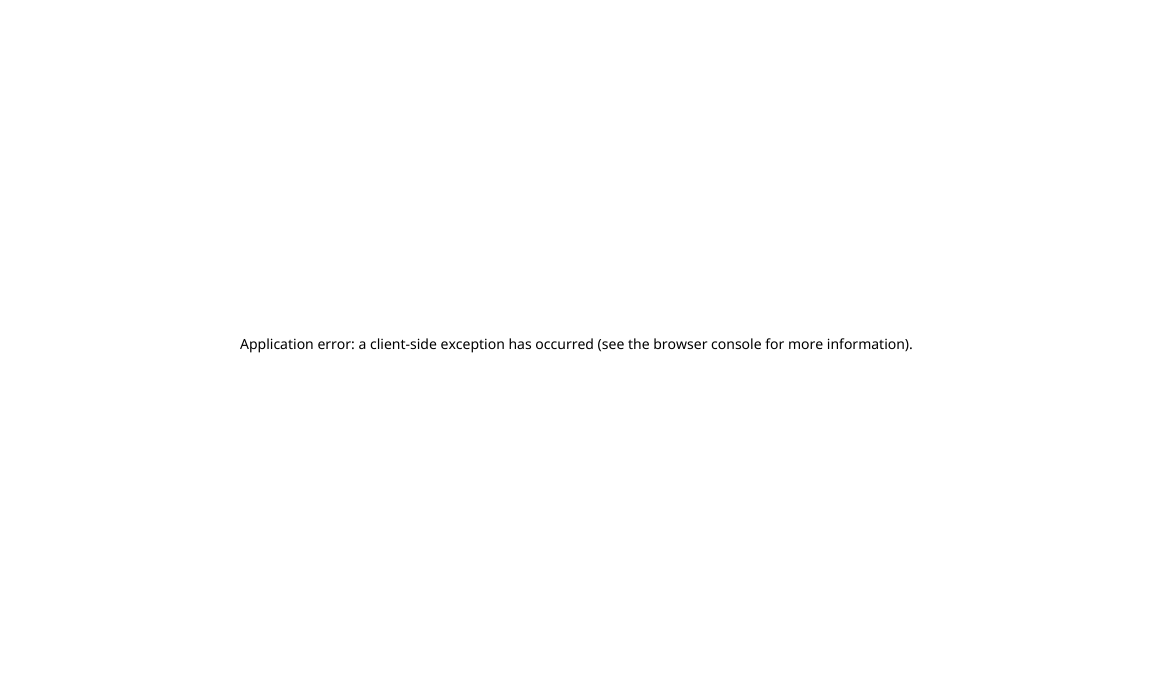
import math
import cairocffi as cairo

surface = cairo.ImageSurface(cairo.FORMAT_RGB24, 1153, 688)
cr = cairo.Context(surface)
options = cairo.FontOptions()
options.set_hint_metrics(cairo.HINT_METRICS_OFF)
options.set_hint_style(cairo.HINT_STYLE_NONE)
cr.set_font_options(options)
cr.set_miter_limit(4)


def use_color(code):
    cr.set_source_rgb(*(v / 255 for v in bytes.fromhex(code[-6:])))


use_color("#ffffff")
cr.paint()
cr.select_font_face("Noto Sans")
cr.set_font_size(14)
use_color("#000000")
cr.move_to(240, 349)
cr.show_text("Application error: a client-side exception has occurred (see the browser console for more information).")
surface.write_to_png("result.png")
